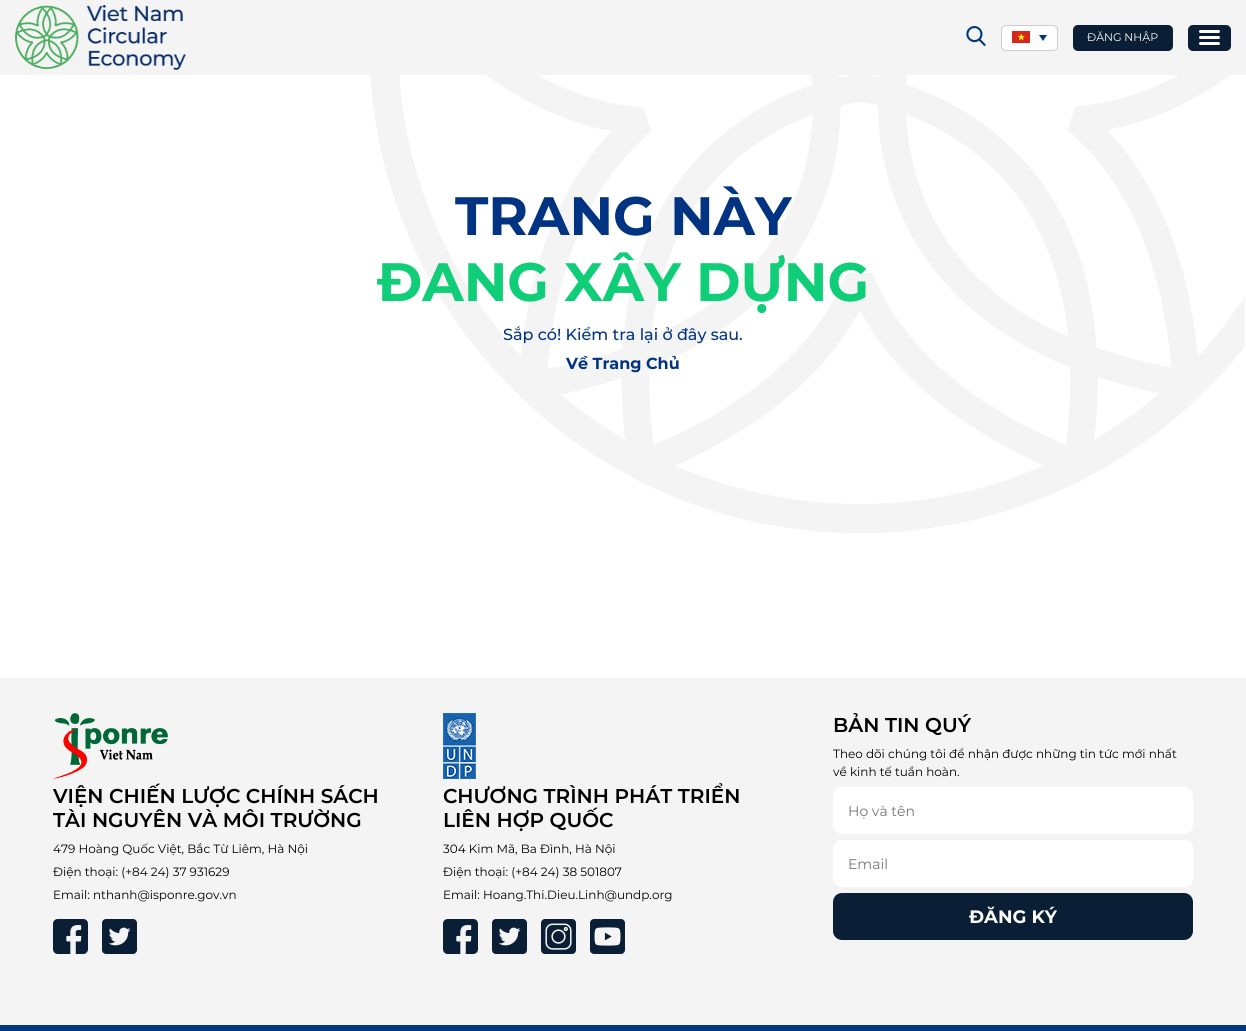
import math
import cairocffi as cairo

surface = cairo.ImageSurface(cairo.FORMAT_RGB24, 1246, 1031)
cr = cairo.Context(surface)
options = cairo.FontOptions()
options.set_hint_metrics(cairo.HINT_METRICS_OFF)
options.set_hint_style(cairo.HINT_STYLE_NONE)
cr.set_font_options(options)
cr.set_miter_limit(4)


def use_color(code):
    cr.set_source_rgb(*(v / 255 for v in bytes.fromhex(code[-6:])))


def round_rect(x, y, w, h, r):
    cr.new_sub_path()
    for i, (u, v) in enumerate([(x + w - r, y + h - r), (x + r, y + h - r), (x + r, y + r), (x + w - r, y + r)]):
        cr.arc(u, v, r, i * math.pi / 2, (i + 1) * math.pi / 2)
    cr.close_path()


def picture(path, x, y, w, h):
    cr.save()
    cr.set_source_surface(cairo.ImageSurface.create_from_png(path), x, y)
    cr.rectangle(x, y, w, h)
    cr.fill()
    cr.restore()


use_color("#ffffff")
cr.paint()
use_color("#f4f4f4")
cr.rectangle(0, 0, 1246, 75)
cr.fill()
picture("img1.png", 15, 5, 171, 65)
picture("img2.png", 966, 26, 20, 20)
use_color("#ffffff")
round_rect(1001.5, 25.5, 56, 25, 4.5)
cr.fill_preserve()
use_color("#cdcdcd")
cr.set_line_width(1)
cr.stroke()
picture("img3.png", 1012, 31, 18, 12)
use_color("#00387d")
cr.new_path()
cr.move_to(1039, 35)
cr.line_to(1047, 35)
cr.line_to(1043, 41)
cr.close_path()
cr.fill()
use_color("#0a1e35")
round_rect(1073, 25, 100, 26, 5)
cr.fill()
cr.select_font_face("Montserrat")
cr.set_font_size(11)
use_color("#ffffff")
cr.move_to(1087, 41)
cr.show_text("ĐĂNG NHẬP")
use_color("#0a1e35")
round_rect(1188, 25, 43, 26, 5)
cr.fill()
use_color("#ffffff")
round_rect(1199, 30, 21, 3, 1.5)
cr.fill()
round_rect(1199, 36, 21, 3, 1.5)
cr.fill()
round_rect(1199, 42, 21, 3, 1.5)
cr.fill()
picture("img4.png", 370, 75, 875, 458)
cr.select_font_face("Montserrat", cairo.FONT_SLANT_NORMAL, cairo.FONT_WEIGHT_BOLD)
cr.set_font_size(54)
use_color("#003483")
cr.move_to(455, 235)
cr.show_text("TRANG NÀY")
use_color("#10ce78")
cr.move_to(377, 301)
cr.show_text("ĐANG XÂY DỰNG")
cr.select_font_face("Montserrat Medium")
cr.set_font_size(16)
use_color("#003483")
cr.move_to(503, 340)
cr.show_text("Sắp có! Kiểm tra lại ở đây sau.")
cr.select_font_face("Montserrat", cairo.FONT_SLANT_NORMAL, cairo.FONT_WEIGHT_BOLD)
cr.move_to(566, 369)
cr.show_text("Về Trang Chủ")
use_color("#f4f4f4")
cr.rectangle(0, 678, 1246, 347)
cr.fill()
picture("img5.png", 53, 713, 115, 66)
cr.select_font_face("Montserrat SemiBold")
cr.set_font_size(20)
use_color("#000000")
cr.move_to(53, 803)
cr.show_text("VIỆN CHIẾN LƯỢC CHÍNH SÁCH")
cr.move_to(53, 827)
cr.show_text("TÀI NGUYÊN VÀ MÔI TRƯỜNG")
cr.select_font_face("Montserrat")
cr.set_font_size(12)
cr.move_to(53, 853)
cr.show_text("479 Hoàng Quốc Việt, Bắc Từ Liêm, Hà Nội")
cr.move_to(53, 876)
cr.show_text("Điện thoại: (+84 24) 37 931629")
cr.move_to(53, 899)
cr.show_text("Email: nthanh@isponre.gov.vn")
picture("img6.png", 53, 919, 35, 35)
picture("img7.png", 102, 919, 35, 35)
picture("img8.png", 443, 713, 33, 66)
cr.select_font_face("Montserrat SemiBold")
cr.set_font_size(20)
cr.move_to(443, 803)
cr.show_text("CHƯƠNG TRÌNH PHÁT TRIỂN")
cr.move_to(443, 827)
cr.show_text("LIÊN HỢP QUỐC")
cr.select_font_face("Montserrat")
cr.set_font_size(12)
cr.move_to(443, 853)
cr.show_text("304 Kim Mã, Ba Đình, Hà Nội")
cr.move_to(443, 876)
cr.show_text("Điện thoại: (+84 24) 38 501807")
cr.move_to(443, 899)
cr.show_text("Email: Hoang.Thi.Dieu.Linh@undp.org")
picture("img6.png", 443, 919, 35, 35)
picture("img7.png", 492, 919, 35, 35)
picture("img9.png", 541, 919, 35, 35)
picture("img10.png", 590, 919, 35, 35)
cr.select_font_face("Montserrat SemiBold")
cr.set_font_size(20)
cr.move_to(833, 732)
cr.show_text("BẢN TIN QUÝ")
cr.select_font_face("Montserrat")
cr.set_font_size(12)
cr.move_to(833, 758)
cr.show_text("Theo dõi chúng tôi để nhận được những tin tức mới nhất")
cr.move_to(833, 776)
cr.show_text("về kinh tế tuần hoàn.")
use_color("#ffffff")
round_rect(833, 787, 360, 47, 9)
cr.fill()
cr.set_font_size(14)
use_color("#757575")
cr.move_to(848, 816)
cr.show_text("Họ và tên")
use_color("#ffffff")
round_rect(833, 840, 360, 47, 9)
cr.fill()
use_color("#757575")
cr.move_to(848, 869)
cr.show_text("Email")
use_color("#0a1e35")
round_rect(833, 893, 360, 47, 9)
cr.fill()
cr.select_font_face("Montserrat", cairo.FONT_SLANT_NORMAL, cairo.FONT_WEIGHT_BOLD)
cr.set_font_size(18)
use_color("#ffffff")
cr.move_to(969, 923)
cr.show_text("ĐĂNG KÝ")
use_color("#00387f")
cr.rectangle(0, 1025, 1246, 6)
cr.fill()
surface.write_to_png("result.png")
